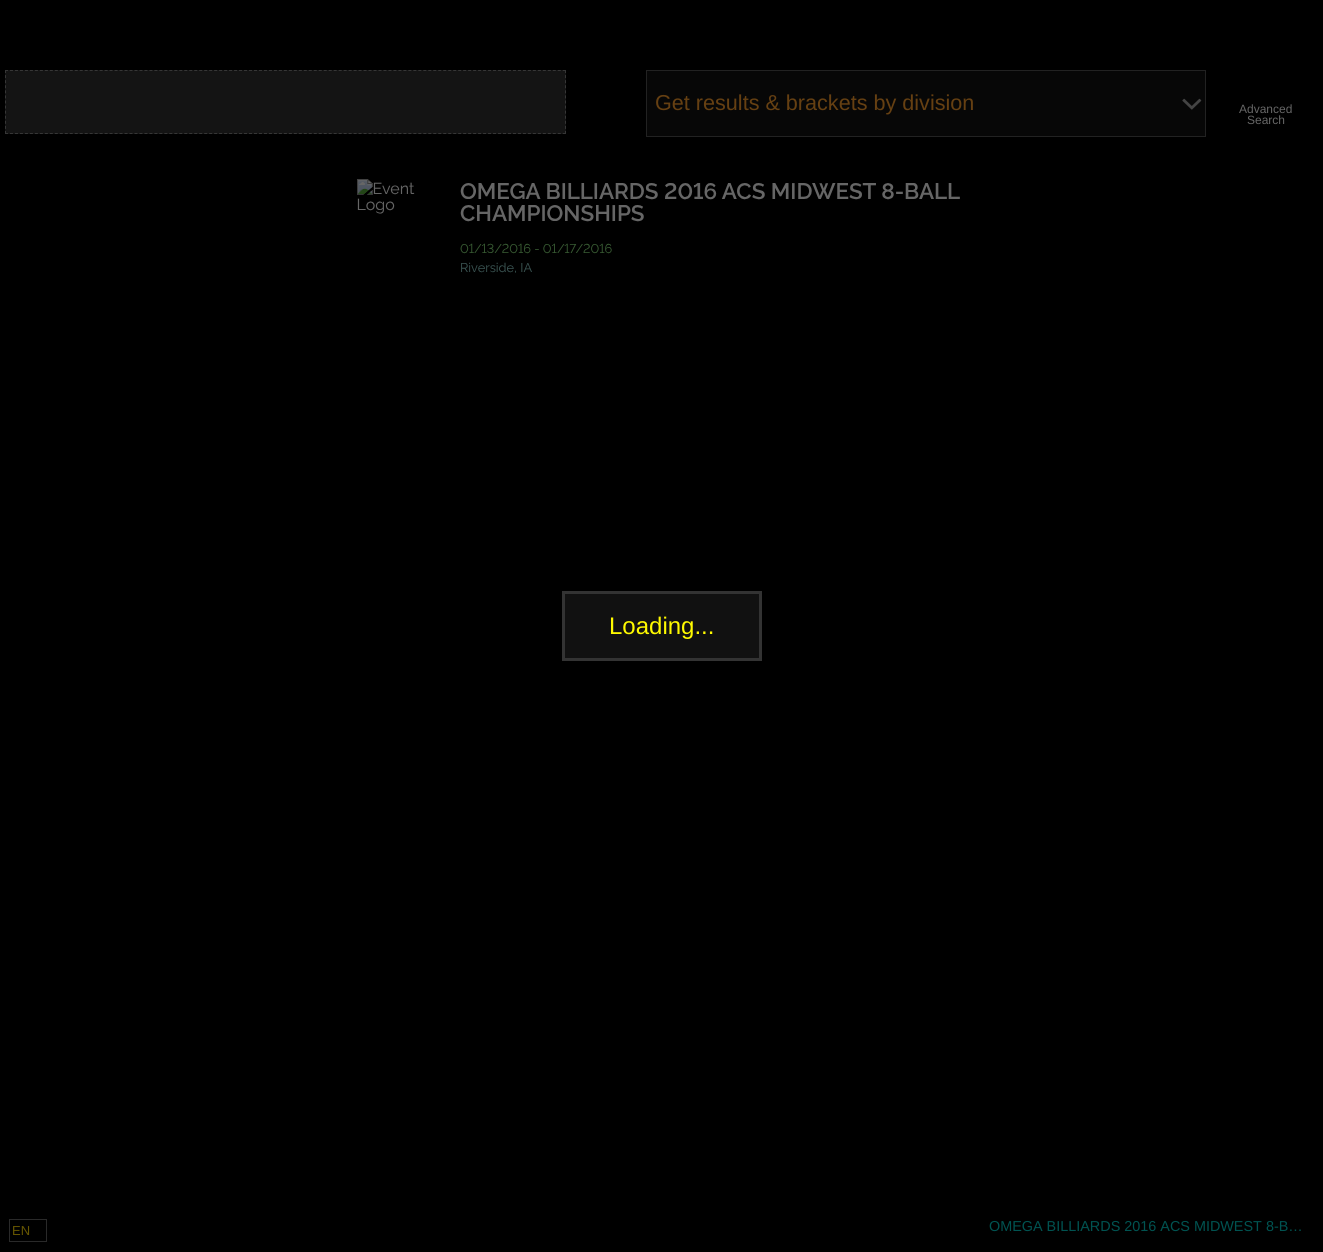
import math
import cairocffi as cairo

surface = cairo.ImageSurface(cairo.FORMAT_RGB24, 1323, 1252)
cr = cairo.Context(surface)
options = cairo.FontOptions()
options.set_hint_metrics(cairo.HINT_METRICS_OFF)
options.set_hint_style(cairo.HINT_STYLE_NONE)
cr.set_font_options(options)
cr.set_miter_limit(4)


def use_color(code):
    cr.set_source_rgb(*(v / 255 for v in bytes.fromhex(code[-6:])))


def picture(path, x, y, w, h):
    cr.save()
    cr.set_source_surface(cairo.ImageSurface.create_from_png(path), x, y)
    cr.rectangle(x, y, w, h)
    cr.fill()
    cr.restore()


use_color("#000000")
cr.paint()
use_color("#141414")
cr.rectangle(5, 70, 561, 64)
cr.fill()
cr.new_path()
cr.move_to(5, 70.5)
cr.line_to(566, 70.5)
use_color("#363636")
cr.set_line_width(1)
cr.set_dash([3, 1.98])
cr.stroke()
cr.new_path()
cr.move_to(565.5, 70)
cr.line_to(565.5, 134)
cr.set_dash([3, 2.08])
cr.stroke()
cr.new_path()
cr.move_to(5, 133.5)
cr.line_to(566, 133.5)
cr.set_dash([3, 1.98])
cr.stroke()
cr.new_path()
cr.move_to(5.5, 70)
cr.line_to(5.5, 134)
cr.set_dash([3, 2.08])
cr.stroke()
use_color("#070707")
cr.rectangle(646.5, 70.5, 559, 66)
cr.fill_preserve()
use_color("#222222")
cr.set_dash([])
cr.stroke()
cr.select_font_face("Liberation Sans")
cr.set_font_size(21.6)
use_color("#664012")
cr.move_to(655, 110)
cr.show_text("Get results & brackets by division")
picture("img1.png", 1182, 98, 20, 12)
cr.set_font_size(12)
use_color("#666666")
cr.move_to(1239, 113)
cr.show_text("Advanced")
cr.move_to(1247, 124)
cr.show_text("Search")
picture("img2.png", 357, 179, 603, 94)
use_color("#111111")
cr.rectangle(563.5, 592.5, 197, 67)
cr.fill_preserve()
use_color("#333333")
cr.set_line_width(3)
cr.stroke()
cr.set_font_size(24)
use_color("#fffa00")
cr.move_to(609, 634)
cr.show_text("Loading...")
cr.rectangle(9.5, 1219.5, 37, 22)
use_color("#292929")
cr.set_line_width(1)
cr.stroke()
cr.set_font_size(13)
use_color("#665600")
cr.move_to(12, 1235)
cr.show_text("EN")
cr.set_font_size(14.4)
use_color("#005351")
cr.move_to(989, 1231)
cr.show_text("OMEGA BILLIARDS 2016 ACS MIDWEST 8-B…")
surface.write_to_png("result.png")
